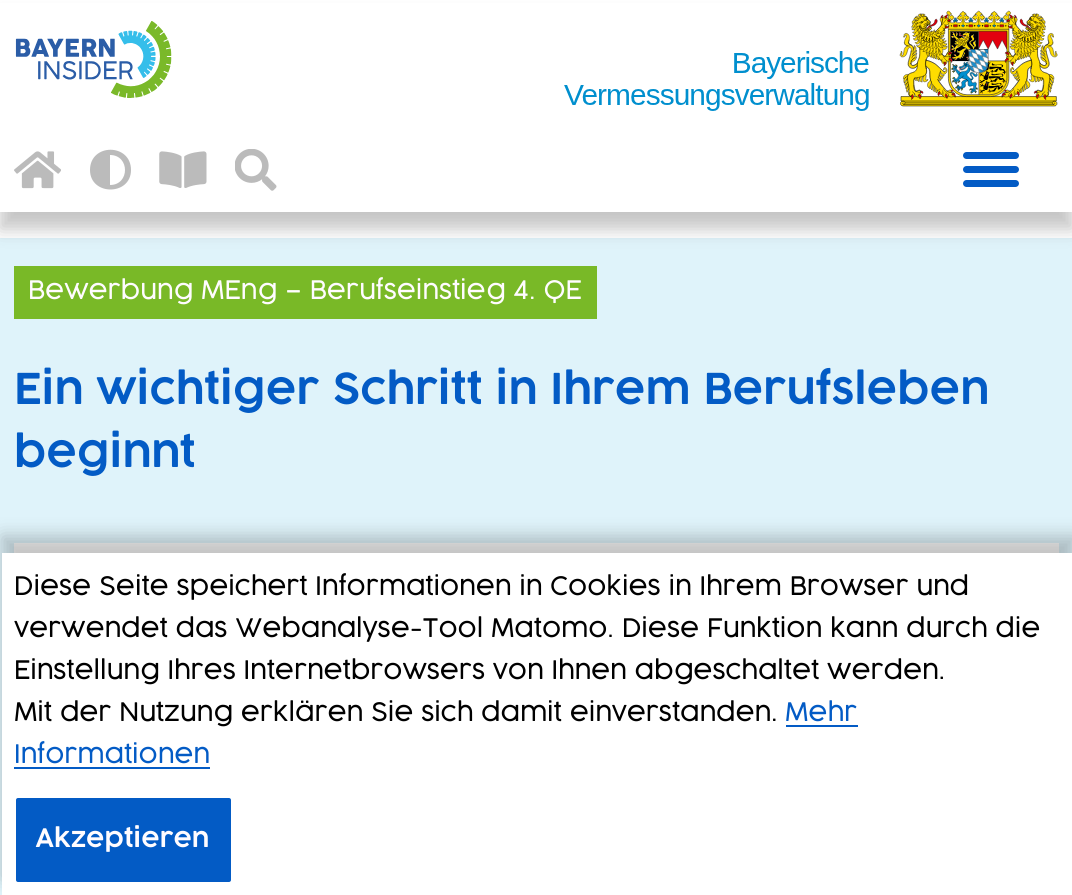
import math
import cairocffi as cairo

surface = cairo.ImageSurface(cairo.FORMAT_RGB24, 1072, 895)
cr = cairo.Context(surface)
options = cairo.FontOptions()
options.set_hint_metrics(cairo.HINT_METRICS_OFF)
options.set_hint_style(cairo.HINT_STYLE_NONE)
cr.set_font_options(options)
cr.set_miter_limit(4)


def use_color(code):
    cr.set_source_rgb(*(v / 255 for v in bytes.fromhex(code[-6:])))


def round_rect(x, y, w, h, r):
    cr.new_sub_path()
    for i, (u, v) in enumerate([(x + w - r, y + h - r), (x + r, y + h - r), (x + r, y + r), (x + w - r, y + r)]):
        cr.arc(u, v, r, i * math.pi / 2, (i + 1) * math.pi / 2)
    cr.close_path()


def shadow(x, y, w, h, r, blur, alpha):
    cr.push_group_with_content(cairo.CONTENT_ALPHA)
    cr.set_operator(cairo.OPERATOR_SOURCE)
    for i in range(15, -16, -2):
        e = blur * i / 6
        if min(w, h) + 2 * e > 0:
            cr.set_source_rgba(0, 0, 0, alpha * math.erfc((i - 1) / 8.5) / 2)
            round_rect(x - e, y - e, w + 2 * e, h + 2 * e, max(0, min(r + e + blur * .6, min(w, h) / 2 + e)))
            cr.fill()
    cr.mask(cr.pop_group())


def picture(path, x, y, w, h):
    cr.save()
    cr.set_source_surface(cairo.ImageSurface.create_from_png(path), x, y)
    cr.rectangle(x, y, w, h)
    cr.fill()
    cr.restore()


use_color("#ffffff")
cr.paint()
use_color("#dff3fa")
cr.rectangle(0, 238, 1072, 657)
cr.fill()
use_color("#000000")
shadow(0, 18, 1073, 211, 0, 9, 0.23)
use_color("#ffffff")
cr.rectangle(0, 3, 1072, 209)
cr.fill()
picture("img1.png", 15, 21, 157, 77)
picture("img2.png", 564, 10, 494, 101)
picture("img3.png", 14, 151, 47, 38)
use_color("#bbbbbb")
cr.new_path()
cr.move_to(90, 170)
cr.curve_to(90, 196, 131, 196, 131, 170)
cr.curve_to(131, 143, 90, 143, 90, 170)
cr.close_path()
cr.move_to(110, 185)
cr.line_to(110, 155)
cr.curve_to(130, 155, 130, 185, 110, 185)
cr.close_path()
cr.fill()
picture("img4.png", 159, 151, 48, 37)
picture("img5.png", 235, 149, 42, 42)
use_color("#035bc5")
round_rect(963, 166, 56, 7, 3.5)
cr.fill()
round_rect(963, 152, 56, 7, 3.5)
cr.fill()
round_rect(963, 180, 56, 7, 3.5)
cr.fill()
use_color("#79b927")
cr.rectangle(14, 266, 583, 53)
cr.fill()
cr.select_font_face("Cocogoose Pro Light")
cr.set_font_size(25.2)
use_color("#fffcff")
cr.move_to(28, 299)
cr.show_text("Bewerbung MEng – Berufseinstieg")
cr.move_to(513, 299)
cr.show_text("4. QE")
cr.select_font_face("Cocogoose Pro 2 Light")
cr.set_font_size(42)
use_color("#035bc5")
cr.move_to(14, 404)
cr.show_text("Ein wichtiger Schritt in Ihrem Berufsleben")
cr.move_to(14, 467)
cr.show_text("beginnt")
use_color("#ffffff")
cr.rectangle(14, 543, 1045, 10)
cr.fill()
cr.save()
cr.set_fill_rule(cairo.FILL_RULE_EVEN_ODD)
cr.new_path()
cr.move_to(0, 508)
cr.line_to(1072, 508)
cr.line_to(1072, 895)
cr.line_to(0, 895)
cr.close_path()
cr.move_to(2, 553)
cr.line_to(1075, 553)
cr.line_to(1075, 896)
cr.line_to(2, 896)
cr.close_path()
cr.clip()
use_color("#000000")
shadow(2, 536, 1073, 343, 0, 9, 0.23)
cr.restore()
cr.rectangle(2, 553, 1070, 342)
cr.fill()
cr.select_font_face("Cocogoose Pro Light")
cr.set_font_size(25.2)
use_color("#000000")
cr.move_to(14, 595)
cr.show_text("Diese Seite speichert Informationen in Cookies in Ihrem Browser und")
cr.move_to(14, 637)
cr.show_text("verwendet das Webanalyse-Tool Matomo. Diese Funktion kann durch die")
cr.move_to(14, 679)
cr.show_text("Einstellung Ihres Internetbrowsers von Ihnen abgeschaltet werden.")
cr.move_to(14, 721)
cr.show_text("Mit der Nutzung erklären Sie sich damit einverstanden.")
use_color("#035bc5")
cr.move_to(785, 721)
cr.show_text("Mehr")
cr.rectangle(786, 725, 72, 2)
cr.fill()
cr.move_to(14, 763)
cr.show_text("Informationen")
cr.rectangle(14, 767, 196, 2)
cr.fill()
round_rect(16, 798, 215, 84, 2)
cr.fill()
cr.select_font_face("Cocogoose Pro 2 Light")
use_color("#fffcff")
cr.move_to(35, 847)
cr.show_text("Akzeptieren")
surface.write_to_png("result.png")
